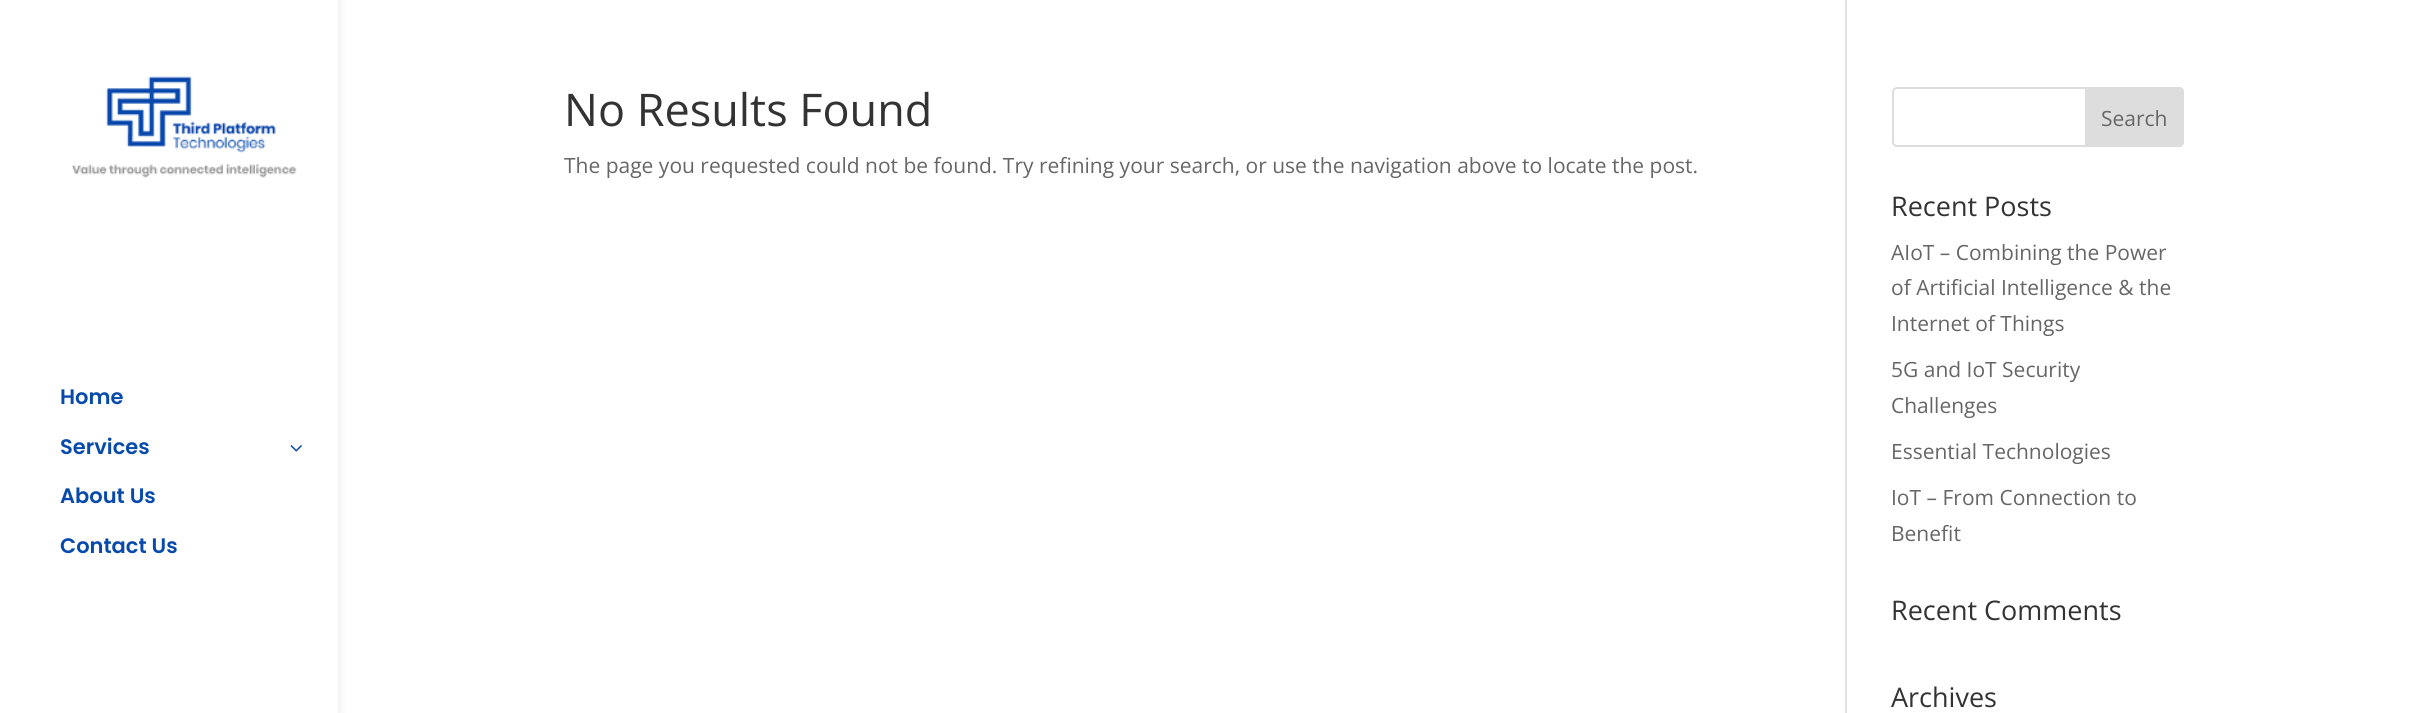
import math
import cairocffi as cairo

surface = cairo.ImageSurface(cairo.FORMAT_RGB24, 2410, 713)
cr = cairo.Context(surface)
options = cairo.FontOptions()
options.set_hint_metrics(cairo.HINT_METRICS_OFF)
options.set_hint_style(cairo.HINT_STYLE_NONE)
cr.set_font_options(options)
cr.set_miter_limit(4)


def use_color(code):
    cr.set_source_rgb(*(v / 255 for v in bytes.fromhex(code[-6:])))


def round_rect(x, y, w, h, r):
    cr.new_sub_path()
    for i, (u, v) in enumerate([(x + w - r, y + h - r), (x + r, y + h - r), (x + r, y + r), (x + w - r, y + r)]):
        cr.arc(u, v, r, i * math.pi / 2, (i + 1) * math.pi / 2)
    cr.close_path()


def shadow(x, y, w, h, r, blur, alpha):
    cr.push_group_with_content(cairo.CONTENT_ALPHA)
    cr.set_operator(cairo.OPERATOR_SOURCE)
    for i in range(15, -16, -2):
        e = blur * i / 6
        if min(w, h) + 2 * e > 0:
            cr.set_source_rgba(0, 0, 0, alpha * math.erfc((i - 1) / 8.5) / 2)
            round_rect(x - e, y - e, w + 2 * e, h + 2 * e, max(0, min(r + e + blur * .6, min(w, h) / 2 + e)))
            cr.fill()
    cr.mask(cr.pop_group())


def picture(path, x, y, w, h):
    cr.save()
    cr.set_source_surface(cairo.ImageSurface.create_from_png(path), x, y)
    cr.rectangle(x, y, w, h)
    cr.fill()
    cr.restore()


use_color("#ffffff")
cr.paint()
use_color("#000000")
shadow(0, 0, 338, 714, 0, 5, 0.1)
use_color("#ffffff")
cr.rectangle(0, 0, 338, 713)
cr.fill()
picture("img1.png", 71, 76, 226, 102)
cr.select_font_face("Poppins SemiBold")
cr.set_font_size(21)
use_color("#074aac")
cr.move_to(60, 404)
cr.show_text("Home")
cr.move_to(60, 454)
cr.show_text("Services")
picture("img2.png", 290, 445, 12, 7)
cr.move_to(60, 503)
cr.show_text("About Us")
cr.move_to(60, 553)
cr.show_text("Contact Us")
use_color("#e2e2e2")
cr.rectangle(1845, 0, 2, 713)
cr.fill()
cr.select_font_face("Open Sans")
cr.set_font_size(45)
use_color("#333333")
cr.move_to(564, 126)
cr.show_text("No Results Found")
cr.set_font_size(21)
use_color("#666666")
cr.move_to(564, 173)
cr.show_text("The page you requested could not be found. Try refining your search, or use the navigation above to locate the post.")
round_rect(1893, 88, 290, 58, 4)
use_color("#dddddd")
cr.stroke()
cr.new_path()
cr.move_to(2086, 88)
cr.line_to(2179, 88)
cr.curve_to(2181, 88, 2183, 90, 2183, 92)
cr.line_to(2183, 142)
cr.curve_to(2183, 144, 2181, 146, 2179, 146)
cr.line_to(2086, 146)
cr.close_path()
cr.fill_preserve()
cr.stroke()
use_color("#666666")
cr.move_to(2101, 126)
cr.show_text("Search")
cr.set_font_size(27)
use_color("#333333")
cr.move_to(1891, 216)
cr.show_text("Recent Posts")
cr.set_font_size(21)
use_color("#666666")
cr.move_to(1891, 260)
cr.show_text("AIoT – Combining the Power")
cr.move_to(1891, 295)
cr.show_text("of Artificial Intelligence & the")
cr.move_to(1891, 331)
cr.show_text("Internet of Things")
cr.move_to(1891, 377)
cr.show_text("5G and IoT Security")
cr.move_to(1891, 413)
cr.show_text("Challenges")
cr.move_to(1891, 459)
cr.show_text("Essential Technologies")
cr.move_to(1891, 505)
cr.show_text("IoT – From Connection to")
cr.move_to(1891, 541)
cr.show_text("Benefit")
cr.set_font_size(27)
use_color("#333333")
cr.move_to(1891, 620)
cr.show_text("Recent Comments")
cr.move_to(1891, 707)
cr.show_text("Archives")
surface.write_to_png("result.png")
